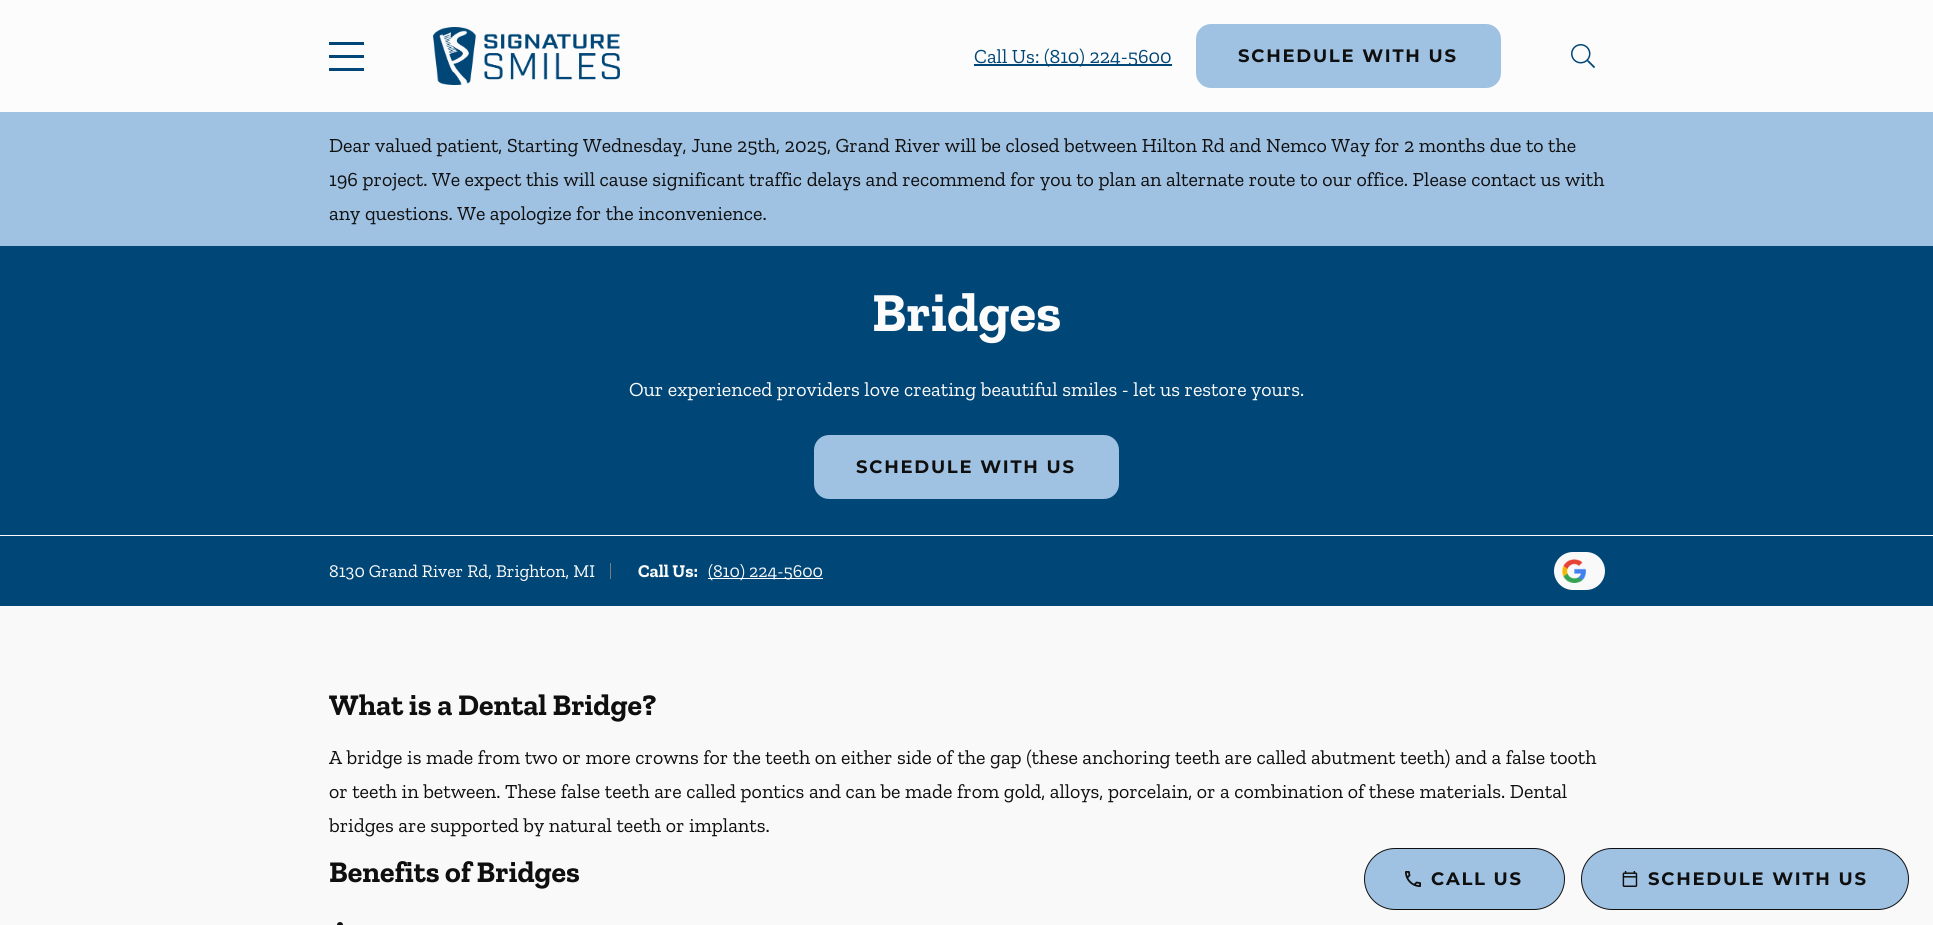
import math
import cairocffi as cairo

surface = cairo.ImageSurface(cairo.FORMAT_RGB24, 1933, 925)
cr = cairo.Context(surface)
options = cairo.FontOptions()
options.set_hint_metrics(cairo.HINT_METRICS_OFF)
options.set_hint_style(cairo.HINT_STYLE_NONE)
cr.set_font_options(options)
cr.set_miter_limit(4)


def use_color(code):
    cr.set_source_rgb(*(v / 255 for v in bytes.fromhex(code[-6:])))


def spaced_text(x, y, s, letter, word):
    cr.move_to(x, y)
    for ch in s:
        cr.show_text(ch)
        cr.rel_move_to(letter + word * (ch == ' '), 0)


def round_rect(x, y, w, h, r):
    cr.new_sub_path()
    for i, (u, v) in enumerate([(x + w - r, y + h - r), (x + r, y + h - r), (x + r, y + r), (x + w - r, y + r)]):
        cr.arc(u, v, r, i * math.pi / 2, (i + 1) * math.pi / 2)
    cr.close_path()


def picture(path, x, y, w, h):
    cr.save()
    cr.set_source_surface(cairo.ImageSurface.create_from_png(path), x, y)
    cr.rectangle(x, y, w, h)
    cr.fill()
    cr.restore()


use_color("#f9f9f9")
cr.paint()
use_color("#fcfcfc")
cr.rectangle(0, 0, 1933, 112)
cr.fill()
use_color("#004677")
cr.rectangle(329, 42, 35, 3)
cr.fill()
cr.rectangle(329, 55, 35, 3)
cr.fill()
cr.rectangle(329, 68, 35, 3)
cr.fill()
picture("img1.png", 433, 27, 187, 58)
cr.rectangle(974, 64, 198, 2)
cr.fill()
cr.select_font_face("Zilla Slab")
cr.set_font_size(20)
cr.move_to(974, 63)
cr.show_text("Call Us: (810) 224-5600")
use_color("#9fc1e2")
round_rect(1197, 25, 303, 62, 14)
cr.fill_preserve()
cr.stroke()
cr.select_font_face("Montserrat", cairo.FONT_SLANT_NORMAL, cairo.FONT_WEIGHT_BOLD)
cr.set_font_size(18)
use_color("#0f0f0f")
spaced_text(1238, 62, "SCHEDULE WITH US", 1.75, 0)
picture("img2.png", 1571, 44, 24, 24)
use_color("#9fc1e2")
cr.rectangle(0, 112, 1933, 134)
cr.fill()
cr.select_font_face("Zilla Slab")
cr.set_font_size(20)
use_color("#0f0f0f")
cr.move_to(329, 152)
cr.show_text("Dear valued patient, Starting Wednesday, June 25th, 2025, Grand River will be closed between Hilton Rd and Nemco Way for 2 months due to the")
cr.move_to(329, 186)
cr.show_text("196 project. We expect this will cause significant traffic delays and recommend for you to plan an alternate route to our office. Please contact us with")
cr.move_to(329, 220)
cr.show_text("any questions. We apologize for the inconvenience.")
use_color("#004677")
cr.rectangle(0, 246, 1933, 289)
cr.fill()
cr.select_font_face("Zilla Slab", cairo.FONT_SLANT_NORMAL, cairo.FONT_WEIGHT_BOLD)
cr.set_font_size(55)
use_color("#fcfcfc")
cr.move_to(872, 331)
cr.show_text("Bridges")
cr.select_font_face("Zilla Slab")
cr.set_font_size(20)
cr.move_to(629, 396)
cr.show_text("Our experienced providers love creating beautiful smiles - let us restore yours.")
use_color("#9fc1e2")
round_rect(815, 436, 303, 62, 14)
cr.fill_preserve()
cr.stroke()
cr.select_font_face("Montserrat", cairo.FONT_SLANT_NORMAL, cairo.FONT_WEIGHT_BOLD)
cr.set_font_size(18)
use_color("#0f0f0f")
spaced_text(856, 473, "SCHEDULE WITH US", 1.75, 0)
use_color("#004677")
cr.rectangle(0, 536, 1933, 70)
cr.fill()
use_color("#fcfcfc")
cr.rectangle(0, 535, 1933, 1)
cr.fill()
cr.rectangle(0, 606, 1933, 1)
cr.fill()
cr.select_font_face("Zilla Slab")
cr.move_to(329, 577)
cr.show_text("8130 Grand River Rd, Brighton, MI")
use_color("#7a7a7a")
cr.rectangle(610, 563, 1, 16)
cr.fill()
cr.select_font_face("Zilla Slab", cairo.FONT_SLANT_NORMAL, cairo.FONT_WEIGHT_BOLD)
use_color("#fcfcfc")
cr.move_to(638, 577)
cr.show_text("Call Us:")
cr.rectangle(708, 578, 115, 1)
cr.fill()
cr.select_font_face("Zilla Slab")
cr.move_to(708, 577)
cr.show_text("(810) 224-5600")
use_color("#f9f9f9")
round_rect(1554, 552, 51, 38, 19)
cr.fill()
picture("img3.png", 1562, 559, 24, 24)
cr.select_font_face("Zilla Slab", cairo.FONT_SLANT_NORMAL, cairo.FONT_WEIGHT_BOLD)
cr.set_font_size(30)
use_color("#0f0f0f")
cr.move_to(329, 715)
cr.show_text("What is a Dental Bridge?")
cr.select_font_face("Zilla Slab")
cr.set_font_size(20)
cr.move_to(329, 764)
cr.show_text("A bridge is made from two or more crowns for the teeth on either side of the gap (these anchoring teeth are called abutment teeth) and a false tooth")
cr.move_to(329, 798)
cr.show_text("or teeth in between. These false teeth are called pontics and can be made from gold, alloys, porcelain, or a combination of these materials. Dental")
cr.move_to(329, 832)
cr.show_text("bridges are supported by natural teeth or implants.")
cr.select_font_face("Zilla Slab", cairo.FONT_SLANT_NORMAL, cairo.FONT_WEIGHT_BOLD)
cr.set_font_size(30)
cr.move_to(329, 882)
cr.show_text("Benefits of Bridges")
use_color("#121212")
cr.new_path()
cr.arc(340, 925, 3, 0, 2 * math.pi)
cr.fill()
use_color("#9fc1e2")
round_rect(1364.5, 848.5, 200, 61, 30.5)
cr.fill_preserve()
use_color("#0f0f0f")
cr.set_line_width(1)
cr.stroke()
picture("img4.png", 1405, 871, 16, 16)
cr.select_font_face("Montserrat", cairo.FONT_SLANT_NORMAL, cairo.FONT_WEIGHT_BOLD)
cr.set_font_size(18)
spaced_text(1431, 885, "CALL US", 1.75, 0)
use_color("#9fc1e2")
round_rect(1581.5, 848.5, 327, 61, 30.5)
cr.fill_preserve()
use_color("#0f0f0f")
cr.stroke()
picture("img5.png", 1622, 871, 16, 16)
spaced_text(1648, 885, "SCHEDULE WITH US", 1.75, 0)
surface.write_to_png("result.png")
